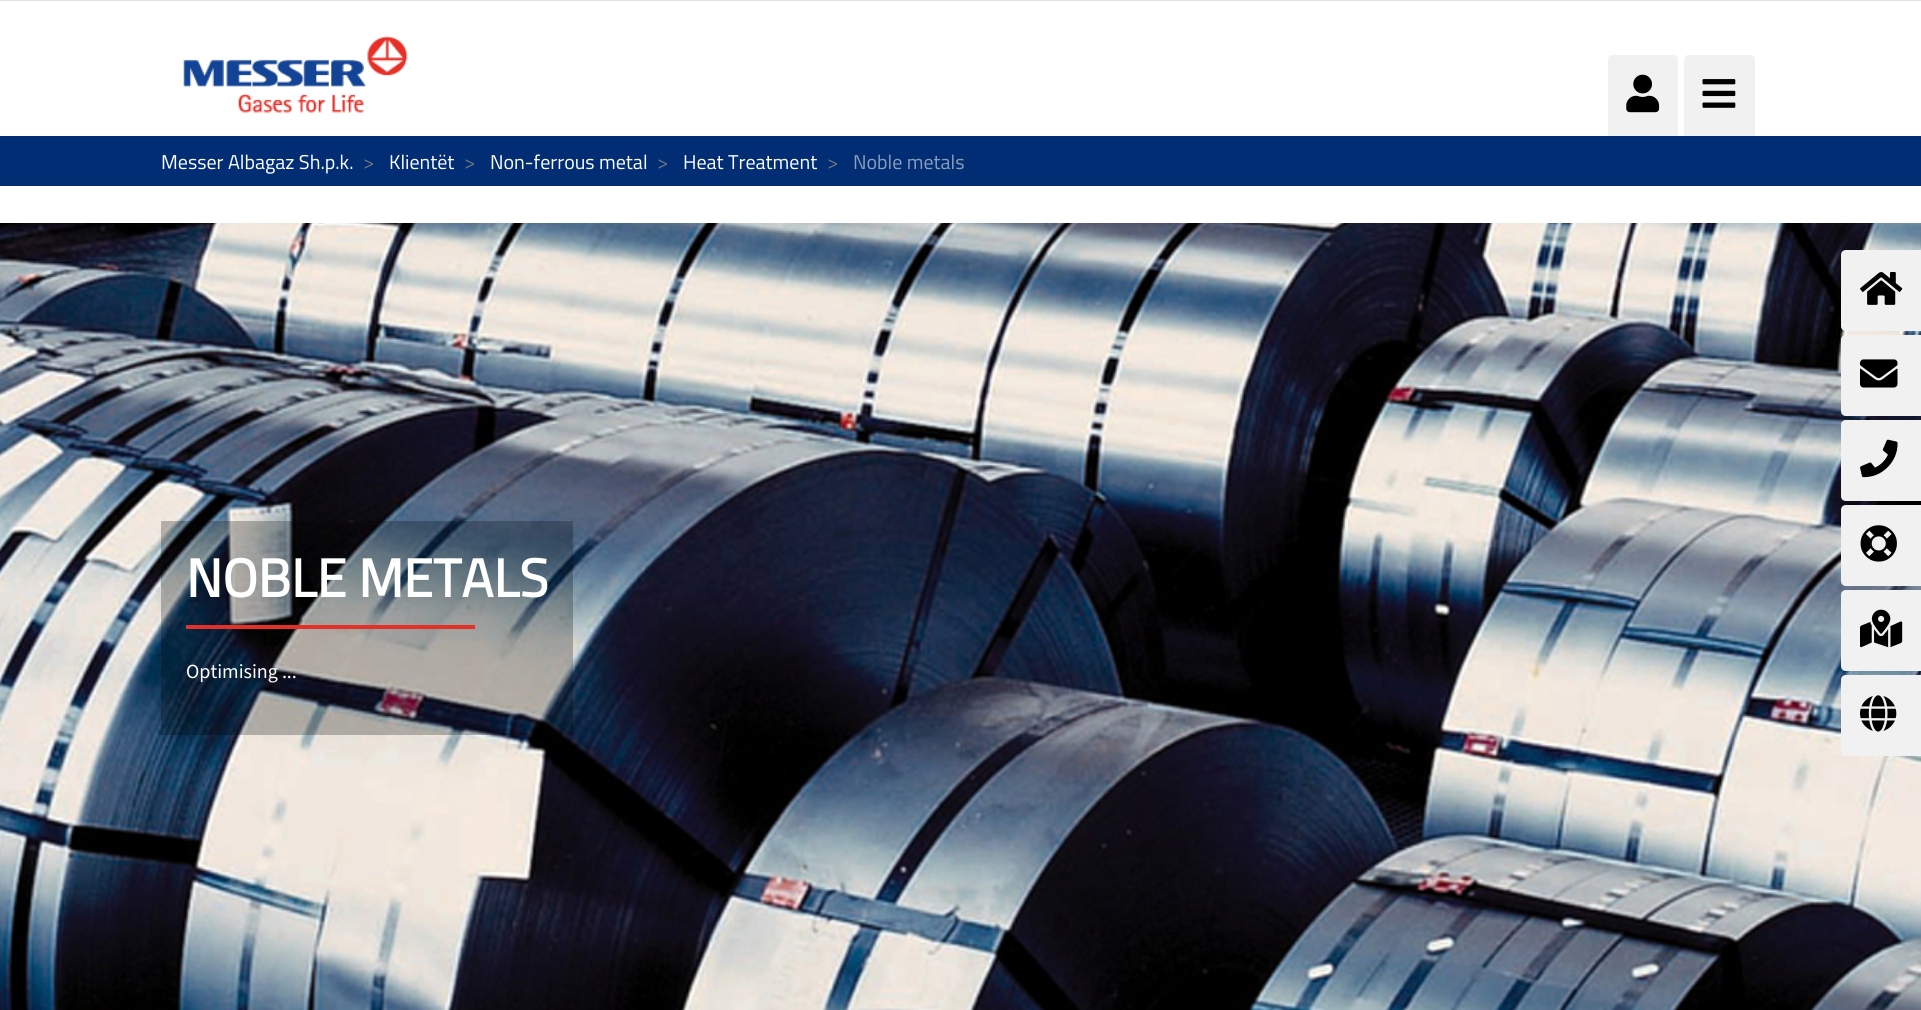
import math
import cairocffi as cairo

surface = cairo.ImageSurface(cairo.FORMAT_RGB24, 1921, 1010)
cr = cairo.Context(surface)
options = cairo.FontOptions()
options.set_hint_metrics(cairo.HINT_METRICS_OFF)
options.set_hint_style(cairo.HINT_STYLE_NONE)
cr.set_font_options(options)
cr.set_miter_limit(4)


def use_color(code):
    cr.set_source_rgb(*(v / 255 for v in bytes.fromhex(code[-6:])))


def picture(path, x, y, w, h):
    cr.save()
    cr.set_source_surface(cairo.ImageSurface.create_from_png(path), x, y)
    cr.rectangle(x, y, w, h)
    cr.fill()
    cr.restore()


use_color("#ffffff")
cr.paint()
use_color("#dee2e6")
cr.rectangle(0, 0, 1921, 1)
cr.fill()
picture("img1.png", 183, 36, 225, 77)
use_color("#f1f1f1")
cr.new_path()
cr.move_to(1613, 55)
cr.line_to(1673, 55)
cr.curve_to(1676, 55, 1678, 57, 1678, 60)
cr.line_to(1678, 136)
cr.line_to(1608, 136)
cr.line_to(1608, 60)
cr.curve_to(1608, 57, 1610, 55, 1613, 55)
cr.close_path()
cr.fill()
picture("img2.png", 1626, 74, 34, 39)
cr.new_path()
cr.move_to(1689, 55)
cr.line_to(1750, 55)
cr.curve_to(1753, 55, 1755, 57, 1755, 60)
cr.line_to(1755, 136)
cr.line_to(1684, 136)
cr.line_to(1684, 60)
cr.curve_to(1684, 57, 1686, 55, 1689, 55)
cr.close_path()
cr.fill()
picture("img3.png", 1702, 79, 34, 29)
use_color("#002d73")
cr.rectangle(0, 136, 1921, 50)
cr.fill()
cr.select_font_face("Titillium Web")
cr.set_font_size(20)
use_color("#ffffff")
cr.move_to(161, 169)
cr.show_text("Messer Albagaz Sh.p.k.")
use_color("#6c757d")
cr.move_to(363, 169)
cr.show_text(">")
use_color("#ffffff")
cr.move_to(389, 169)
cr.show_text("Klientët")
use_color("#6c757d")
cr.move_to(464, 169)
cr.show_text(">")
use_color("#ffffff")
cr.move_to(490, 169)
cr.show_text("Non-ferrous metal")
use_color("#6c757d")
cr.move_to(657, 169)
cr.show_text(">")
use_color("#ffffff")
cr.move_to(683, 169)
cr.show_text("Heat Treatment")
use_color("#6c757d")
cr.move_to(827, 169)
cr.show_text(">")
use_color("#8b9ebc")
cr.move_to(853, 169)
cr.show_text("Noble metals")
picture("img4.png", 0, 223, 1921, 787)
cr.set_source_rgba(0, 0, 0, 0.25)
cr.rectangle(161, 521, 412, 214)
cr.fill()
cr.select_font_face("Titillium Web", cairo.FONT_SLANT_NORMAL, cairo.FONT_WEIGHT_BOLD)
cr.set_font_size(53.75)
use_color("#ffffff")
cr.move_to(186, 597)
cr.show_text("NOBLE METALS")
use_color("#e3312a")
cr.rectangle(186, 625, 289, 4)
cr.fill()
cr.select_font_face("Source Sans 3")
cr.set_font_size(20)
use_color("#ffffff")
cr.move_to(186, 678)
cr.show_text("Optimising ...")
use_color("#f1f1f1")
cr.new_path()
cr.move_to(1846, 250)
cr.line_to(1921, 250)
cr.line_to(1921, 331)
cr.line_to(1846, 331)
cr.curve_to(1843, 331, 1841, 329, 1841, 326)
cr.line_to(1841, 255)
cr.curve_to(1841, 252, 1843, 250, 1846, 250)
cr.close_path()
cr.fill()
picture("img5.png", 1860, 272, 43, 33)
cr.new_path()
cr.move_to(1846, 335)
cr.line_to(1921, 335)
cr.line_to(1921, 416)
cr.line_to(1846, 416)
cr.curve_to(1843, 416, 1841, 414, 1841, 411)
cr.line_to(1841, 340)
cr.curve_to(1841, 337, 1843, 335, 1846, 335)
cr.close_path()
cr.fill()
picture("img6.png", 1860, 359, 38, 29)
cr.new_path()
cr.move_to(1846, 420)
cr.line_to(1921, 420)
cr.line_to(1921, 501)
cr.line_to(1846, 501)
cr.curve_to(1843, 501, 1841, 499, 1841, 496)
cr.line_to(1841, 425)
cr.curve_to(1841, 422, 1843, 420, 1846, 420)
cr.close_path()
cr.fill()
picture("img7.png", 1860, 439, 38, 39)
cr.new_path()
cr.move_to(1846, 505)
cr.line_to(1921, 505)
cr.line_to(1921, 586)
cr.line_to(1846, 586)
cr.curve_to(1843, 586, 1841, 584, 1841, 581)
cr.line_to(1841, 510)
cr.curve_to(1841, 507, 1843, 505, 1846, 505)
cr.close_path()
cr.fill()
picture("img8.png", 1860, 525, 37, 37)
cr.new_path()
cr.move_to(1846, 590)
cr.line_to(1921, 590)
cr.line_to(1921, 671)
cr.line_to(1846, 671)
cr.curve_to(1843, 671, 1841, 669, 1841, 666)
cr.line_to(1841, 595)
cr.curve_to(1841, 592, 1843, 590, 1846, 590)
cr.close_path()
cr.fill()
picture("img9.png", 1860, 609, 43, 39)
cr.new_path()
cr.move_to(1846, 675)
cr.line_to(1921, 675)
cr.line_to(1921, 756)
cr.line_to(1846, 756)
cr.curve_to(1843, 756, 1841, 754, 1841, 751)
cr.line_to(1841, 680)
cr.curve_to(1841, 677, 1843, 675, 1846, 675)
cr.close_path()
cr.fill()
picture("img10.png", 1860, 695, 37, 37)
surface.write_to_png("result.png")
